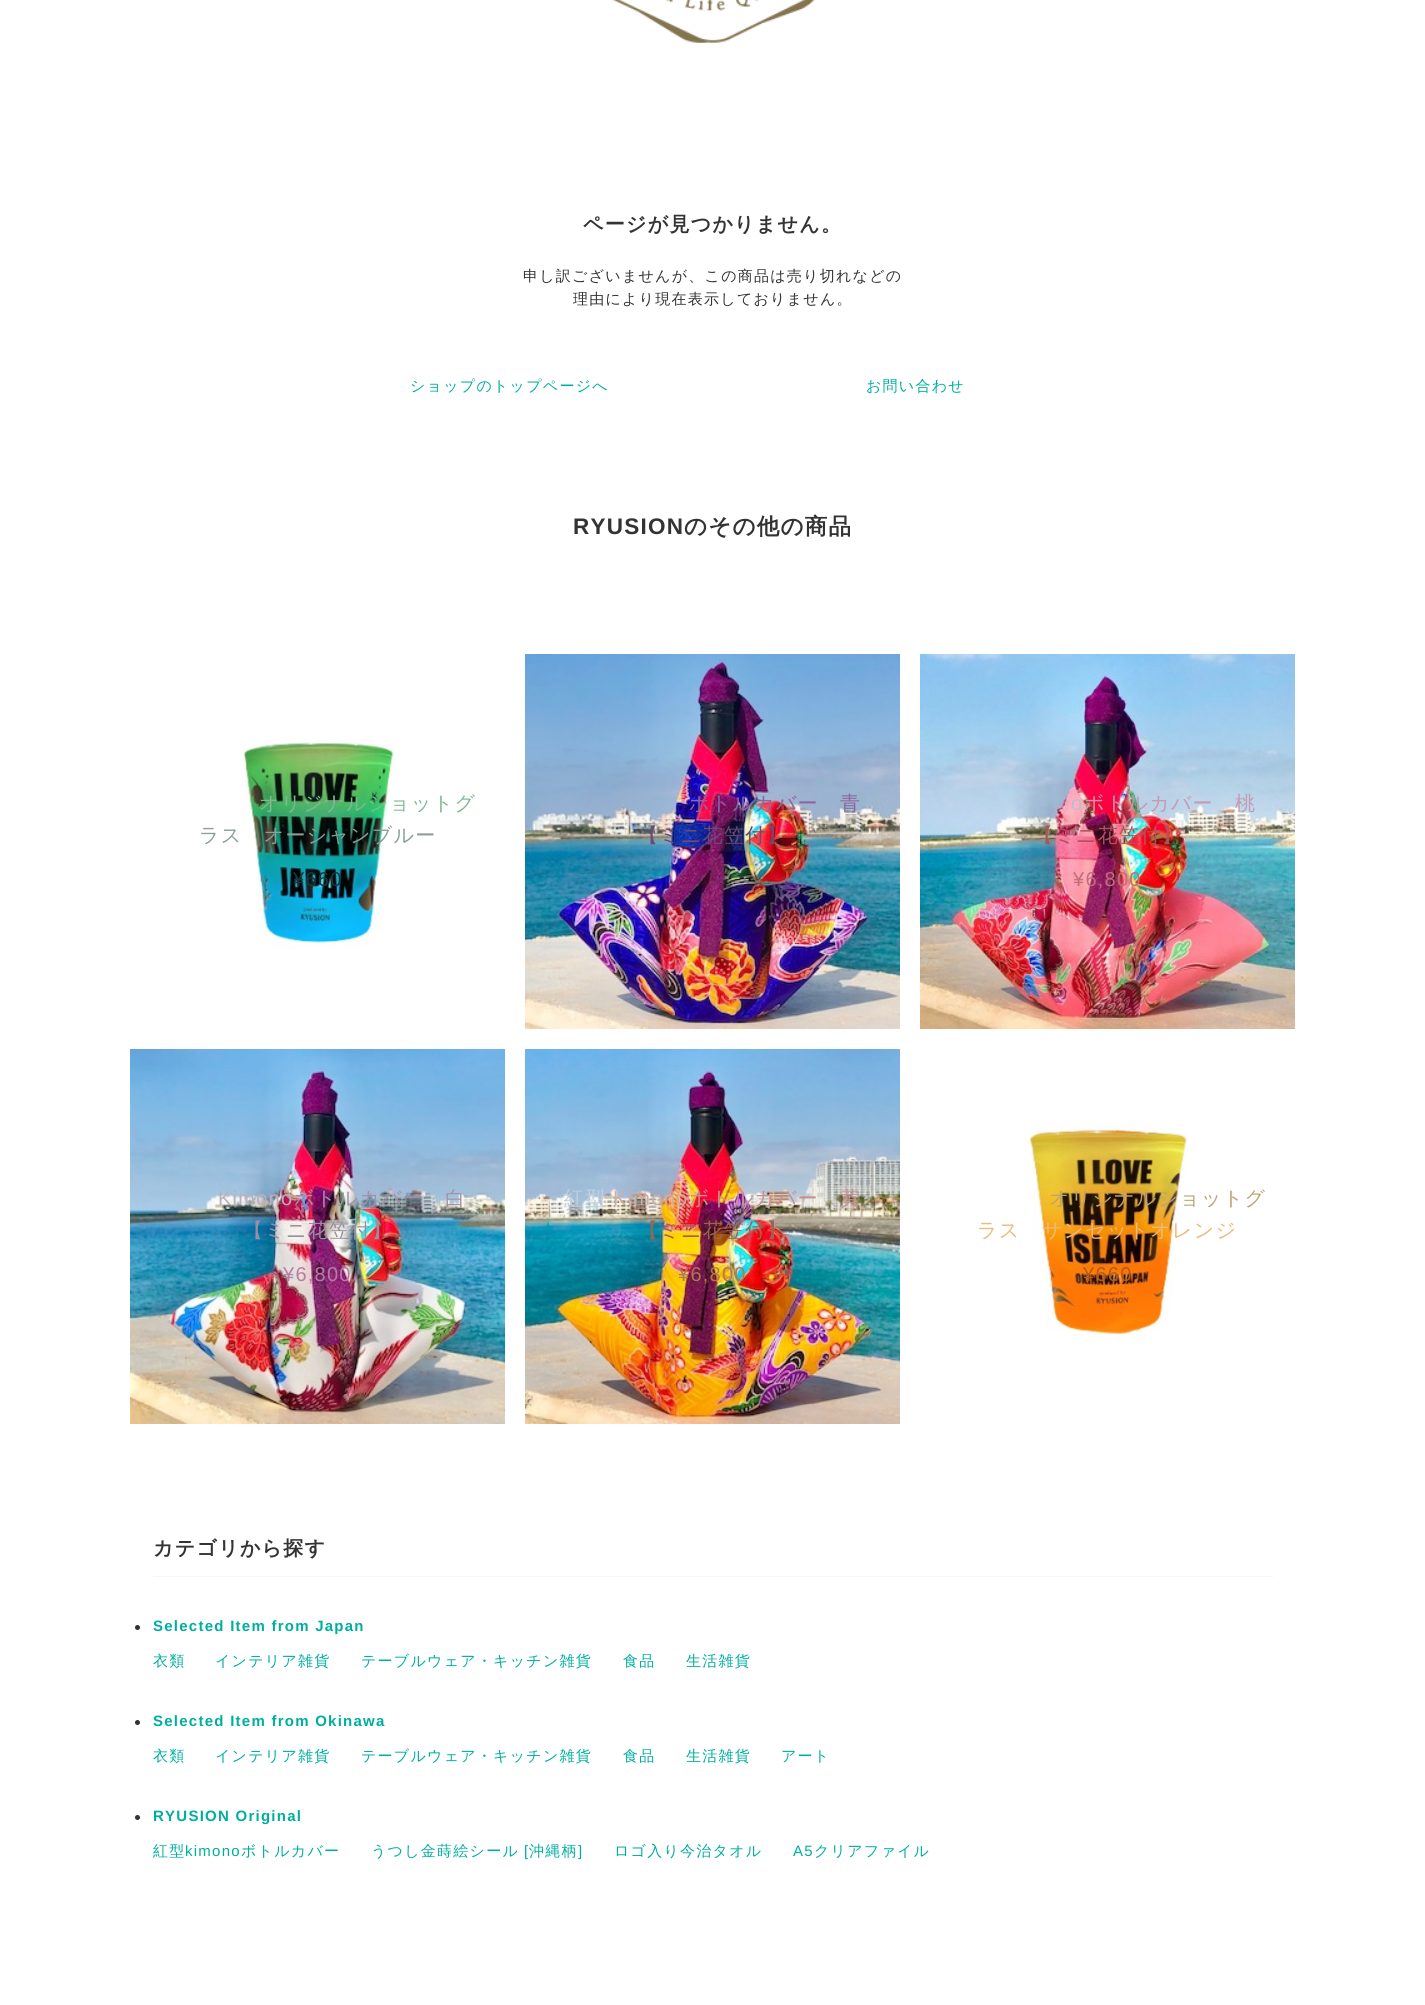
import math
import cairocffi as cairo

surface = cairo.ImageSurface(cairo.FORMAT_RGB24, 1425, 2005)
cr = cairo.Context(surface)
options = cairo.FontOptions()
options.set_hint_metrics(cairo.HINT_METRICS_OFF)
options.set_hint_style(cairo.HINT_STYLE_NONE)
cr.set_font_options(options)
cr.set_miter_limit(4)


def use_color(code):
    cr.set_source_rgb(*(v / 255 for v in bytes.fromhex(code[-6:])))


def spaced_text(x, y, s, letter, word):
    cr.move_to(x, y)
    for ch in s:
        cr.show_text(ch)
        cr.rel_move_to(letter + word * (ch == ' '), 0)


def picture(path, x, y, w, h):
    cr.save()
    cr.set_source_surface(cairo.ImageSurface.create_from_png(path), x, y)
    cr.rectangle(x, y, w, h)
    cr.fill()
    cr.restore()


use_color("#ffffff")
cr.paint()
picture("img1.png", 612, 0, 203, 43)
cr.select_font_face("WenQuanYi Zen Hei", cairo.FONT_SLANT_NORMAL, cairo.FONT_WEIGHT_BOLD)
cr.set_font_size(20)
use_color("#333333")
spaced_text(583, 231, "ページが見つかりません。", 1.25, 0)
cr.select_font_face("WenQuanYi Zen Hei Medium")
cr.set_font_size(15)
spaced_text(523, 281, "申し訳ございませんが、この商品は売り切れなどの", 1.25, 0)
spaced_text(573, 304, "理由により現在表示しておりません。", 1.25, 0)
use_color("#00ae9f")
spaced_text(410, 391, "ショップのトップページへ", 1.25, 0)
spaced_text(866, 391, "お問い合わせ", 1.25, 0)
cr.select_font_face("Liberation Sans", cairo.FONT_SLANT_NORMAL, cairo.FONT_WEIGHT_BOLD)
cr.set_font_size(22.5)
use_color("#333333")
spaced_text(573, 534, "RYUSION", 1.25, 0)
cr.select_font_face("WenQuanYi Zen Hei", cairo.FONT_SLANT_NORMAL, cairo.FONT_WEIGHT_BOLD)
spaced_text(684, 534, "のその他の商品", 1.25, 0)
picture("img2.png", 241, 739, 156, 211)
cr.select_font_face("WenQuanYi Zen Hei Medium")
cr.set_font_size(20)
use_color("#7fb992")
spaced_text(259, 810, "オリジナルショットグ", 1.25, 0)
use_color("#8c9e99")
spaced_text(199, 842, "ラス　オーシャンブルー", 1.25, 0)
cr.select_font_face("Liberation Sans")
use_color("#103a41")
spaced_text(293, 886, "¥660", 1.25, 0)
picture("img3.png", 525, 654, 375, 375)
cr.select_font_face("WenQuanYi Zen Hei Medium")
use_color("#8a67a0")
spaced_text(689, 810, "ボトルカバー　青", 1.25, 0)
use_color("#6e4972")
spaced_text(638, 842, "【ミニ花笠付】", 1.25, 0)
picture("img4.png", 920, 654, 375, 375)
cr.select_font_face("Liberation Sans")
use_color("#bebad1")
spaced_text(1071, 810, "o", 1.25, 0)
cr.select_font_face("WenQuanYi Zen Hei Medium")
use_color("#c59ab1")
spaced_text(1084, 810, "ボトルカバー　桃", 1.25, 0)
use_color("#ac545d")
spaced_text(1033, 842, "【ミニ花笠付】", 1.25, 0)
cr.select_font_face("Liberation Sans")
use_color("#c26d7d")
spaced_text(1073, 886, "¥6,800", 1.25, 0)
picture("img5.png", 130, 1049, 375, 375)
use_color("#bbafbd")
spaced_text(218, 1205, "Kimono", 1.25, 0)
cr.select_font_face("WenQuanYi Zen Hei Medium")
use_color("#a290a8")
spaced_text(294, 1205, "ボトルカバー　白", 1.25, 0)
use_color("#9890a4")
spaced_text(243, 1237, "【ミニ花笠付】", 1.25, 0)
cr.select_font_face("Liberation Sans")
use_color("#b37ea1")
spaced_text(283, 1281, "¥6,800", 1.25, 0)
picture("img6.png", 525, 1049, 375, 375)
cr.select_font_face("WenQuanYi Zen Hei Medium")
use_color("#bfd0dd")
spaced_text(564, 1205, "紅型", 1.25, 0)
cr.select_font_face("Liberation Sans")
use_color("#cdaea2")
spaced_text(613, 1205, "Kimono", 1.25, 0)
cr.select_font_face("WenQuanYi Zen Hei Medium")
use_color("#c99092")
spaced_text(689, 1205, "ボトルカバー　黄", 1.25, 0)
use_color("#986457")
spaced_text(638, 1237, "【ミニ花笠付】", 1.25, 0)
cr.select_font_face("Liberation Sans")
use_color("#ac7b50")
spaced_text(678, 1281, "¥6,800", 1.25, 0)
picture("img7.png", 1023, 1121, 165, 222)
cr.select_font_face("WenQuanYi Zen Hei Medium")
use_color("#bba371")
spaced_text(1049, 1205, "オリジナルショットグ", 1.25, 0)
use_color("#eabb7b")
spaced_text(977, 1237, "ラス　サンセットオレンジ", 1.25, 0)
cr.select_font_face("Liberation Sans")
use_color("#b65a10")
spaced_text(1083, 1281, "¥660", 1.25, 0)
use_color("#f5f5f5")
cr.rectangle(153, 1576, 1120, 1)
cr.fill()
cr.select_font_face("WenQuanYi Zen Hei", cairo.FONT_SLANT_NORMAL, cairo.FONT_WEIGHT_BOLD)
use_color("#333333")
spaced_text(153, 1555, "カテゴリから探す", 1.25, 0)
cr.new_path()
cr.arc(137.5, 1627.5, 2.5, 0, 2 * math.pi)
cr.fill()
cr.select_font_face("Liberation Sans", cairo.FONT_SLANT_NORMAL, cairo.FONT_WEIGHT_BOLD)
cr.set_font_size(15)
use_color("#00ae9f")
spaced_text(153, 1631, "Selected Item from Japan", 1.25, 0)
cr.select_font_face("WenQuanYi Zen Hei Medium")
spaced_text(153, 1666, "衣類", 1.25, 0)
spaced_text(215, 1666, "インテリア雑貨", 1.25, 0)
spaced_text(361, 1666, "テーブルウェア・キッチン雑貨", 1.25, 0)
spaced_text(623, 1666, "食品", 1.25, 0)
spaced_text(686, 1666, "生活雑貨", 1.25, 0)
use_color("#333333")
cr.new_path()
cr.arc(137.5, 1722.5, 2.5, 0, 2 * math.pi)
cr.fill()
cr.select_font_face("Liberation Sans", cairo.FONT_SLANT_NORMAL, cairo.FONT_WEIGHT_BOLD)
use_color("#00ae9f")
spaced_text(153, 1726, "Selected Item from Okinawa", 1.25, 0)
cr.select_font_face("WenQuanYi Zen Hei Medium")
spaced_text(153, 1761, "衣類", 1.25, 0)
spaced_text(215, 1761, "インテリア雑貨", 1.25, 0)
spaced_text(361, 1761, "テーブルウェア・キッチン雑貨", 1.25, 0)
spaced_text(623, 1761, "食品", 1.25, 0)
spaced_text(686, 1761, "生活雑貨", 1.25, 0)
spaced_text(781, 1761, "アート", 1.25, 0)
use_color("#333333")
cr.new_path()
cr.arc(137.5, 1817.5, 2.5, 0, 2 * math.pi)
cr.fill()
cr.select_font_face("Liberation Sans", cairo.FONT_SLANT_NORMAL, cairo.FONT_WEIGHT_BOLD)
use_color("#00ae9f")
spaced_text(153, 1821, "RYUSION Original", 1.25, 0)
cr.select_font_face("WenQuanYi Zen Hei Medium")
spaced_text(153, 1856, "紅型", 1.25, 0)
cr.select_font_face("Liberation Sans")
spaced_text(185, 1856, "kimono", 1.25, 0)
cr.select_font_face("WenQuanYi Zen Hei Medium")
spaced_text(241, 1856, "ボトルカバー", 1.25, 0)
spaced_text(371, 1856, "うつし金蒔絵シール", 1.25, 0)
cr.select_font_face("Liberation Sans")
spaced_text(524, 1856, "[", 1.25, 0)
cr.select_font_face("WenQuanYi Zen Hei Medium")
spaced_text(529, 1856, "沖縄柄", 1.25, 0)
cr.select_font_face("Liberation Sans")
spaced_text(578, 1856, "]", 1.25, 0)
cr.select_font_face("WenQuanYi Zen Hei Medium")
spaced_text(614, 1856, "ロゴ入り今治タオル", 1.25, 0)
cr.select_font_face("Liberation Sans")
spaced_text(793, 1856, "A5", 1.25, 0)
cr.select_font_face("WenQuanYi Zen Hei Medium")
spaced_text(814, 1856, "クリアファイル", 1.25, 0)
surface.write_to_png("result.png")
